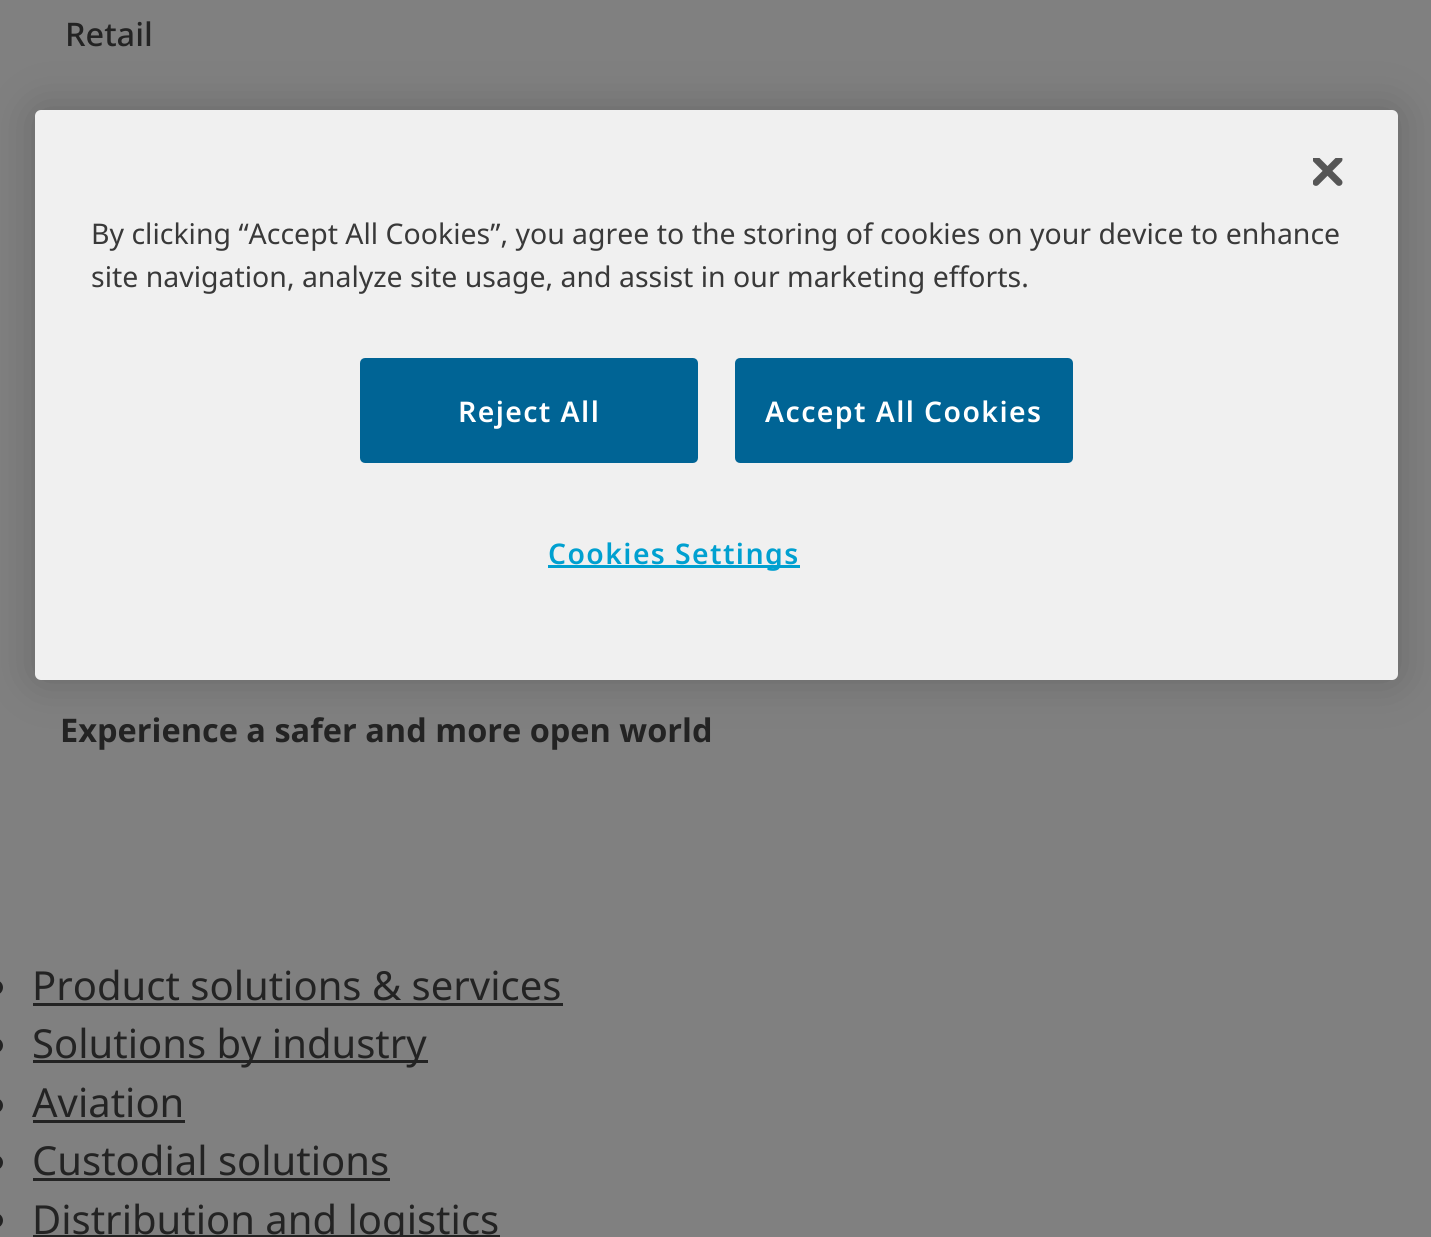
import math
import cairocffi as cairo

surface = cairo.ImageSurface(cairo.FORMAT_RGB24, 1431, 1237)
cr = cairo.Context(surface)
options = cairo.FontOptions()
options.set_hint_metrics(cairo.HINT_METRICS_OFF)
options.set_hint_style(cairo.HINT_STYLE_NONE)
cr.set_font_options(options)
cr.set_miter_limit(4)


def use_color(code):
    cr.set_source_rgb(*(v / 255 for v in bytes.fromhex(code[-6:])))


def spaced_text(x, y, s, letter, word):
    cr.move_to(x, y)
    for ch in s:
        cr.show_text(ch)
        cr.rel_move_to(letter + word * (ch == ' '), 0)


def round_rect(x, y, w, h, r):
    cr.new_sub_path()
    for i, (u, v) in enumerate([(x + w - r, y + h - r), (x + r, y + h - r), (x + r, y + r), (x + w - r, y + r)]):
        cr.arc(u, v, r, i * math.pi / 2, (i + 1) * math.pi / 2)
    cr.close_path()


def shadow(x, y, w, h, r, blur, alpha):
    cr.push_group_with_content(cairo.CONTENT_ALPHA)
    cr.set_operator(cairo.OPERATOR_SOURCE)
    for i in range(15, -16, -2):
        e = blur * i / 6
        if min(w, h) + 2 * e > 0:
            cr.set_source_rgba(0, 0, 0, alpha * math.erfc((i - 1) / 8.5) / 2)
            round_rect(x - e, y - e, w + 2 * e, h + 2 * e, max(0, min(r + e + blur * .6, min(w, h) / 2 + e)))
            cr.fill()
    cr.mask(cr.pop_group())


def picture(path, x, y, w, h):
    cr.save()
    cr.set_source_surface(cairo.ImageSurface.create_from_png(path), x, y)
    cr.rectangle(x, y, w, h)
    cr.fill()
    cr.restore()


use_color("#808080")
cr.paint()
cr.select_font_face("Noto Sans Medium")
cr.set_font_size(32.5)
use_color("#232323")
cr.move_to(65, 46)
cr.show_text("Retail")
cr.select_font_face("Noto Sans", cairo.FONT_SLANT_NORMAL, cairo.FONT_WEIGHT_BOLD)
cr.move_to(60, 742)
cr.show_text("Experience a safer and more open world")
use_color("#000000")
shadow(35, 110, 1363, 570, 6, 22.5, 0.2)
use_color("#f0f0f0")
round_rect(35, 110, 1363, 570, 6)
cr.fill()
picture("img1.png", 1313, 158, 30, 28)
cr.select_font_face("Noto Sans")
cr.set_font_size(28.45)
use_color("#393939")
cr.move_to(91, 244)
cr.show_text("By clicking “Accept All Cookies”, you agree to the storing of cookies on your device to enhance")
cr.move_to(91, 287)
cr.show_text("site navigation, analyze site usage, and assist in our marketing efforts.")
use_color("#006495")
round_rect(361.5, 359.5, 335, 102, 3.5)
cr.fill_preserve()
cr.set_line_width(3)
cr.stroke()
cr.select_font_face("Noto Sans SemiBold")
use_color("#ffffff")
spaced_text(458, 422, "Reject All", 1.4, 0)
use_color("#006495")
round_rect(736.5, 359.5, 335, 102, 3.5)
cr.fill_preserve()
cr.stroke()
use_color("#ffffff")
spaced_text(765, 422, "Accept All Cookies", 1.4, 0)
use_color("#00a0d0")
cr.rectangle(548, 565, 252, 3)
cr.fill()
spaced_text(548, 564, "Cookies Settings", 1.4, 0)
use_color("#232323")
round_rect(-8, 980, 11, 15, 7.5)
cr.fill()
cr.select_font_face("Noto Sans")
cr.set_font_size(40)
cr.move_to(32, 1000)
cr.show_text("Product solutions & services")
cr.rectangle(33, 1003, 530, 3)
cr.fill()
round_rect(-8, 1038, 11, 15, 7.5)
cr.fill()
cr.rectangle(33, 1060, 395, 3)
cr.fill()
cr.move_to(32, 1058)
cr.show_text("Solutions by industry")
round_rect(-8, 1098, 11, 15, 7.5)
cr.fill()
cr.move_to(32, 1117)
cr.show_text("Aviation")
cr.rectangle(33, 1120, 152, 3)
cr.fill()
round_rect(-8, 1155, 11, 15, 7.5)
cr.fill()
cr.move_to(32, 1175)
cr.show_text("Custodial solutions")
cr.rectangle(33, 1178, 357, 3)
cr.fill()
round_rect(-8, 1213, 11, 15, 7.5)
cr.fill()
cr.rectangle(33, 1235, 467, 2)
cr.fill()
cr.move_to(32, 1234)
cr.show_text("Distribution and logistics")
surface.write_to_png("result.png")
